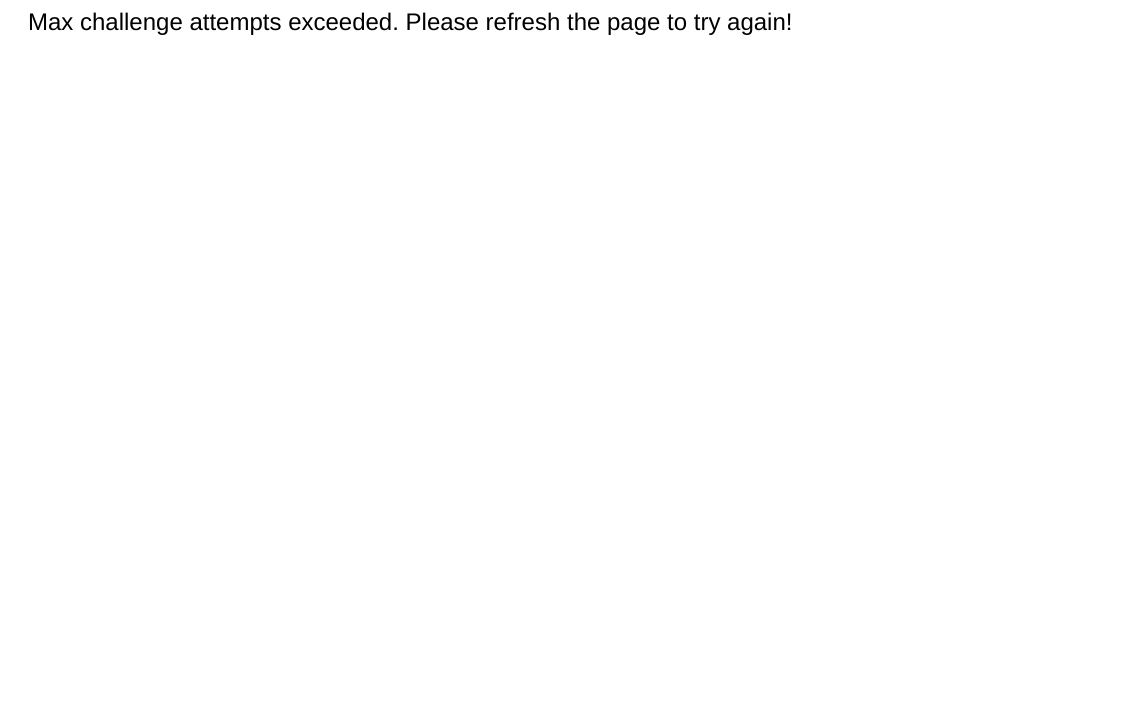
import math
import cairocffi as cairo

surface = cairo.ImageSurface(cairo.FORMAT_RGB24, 1143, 716)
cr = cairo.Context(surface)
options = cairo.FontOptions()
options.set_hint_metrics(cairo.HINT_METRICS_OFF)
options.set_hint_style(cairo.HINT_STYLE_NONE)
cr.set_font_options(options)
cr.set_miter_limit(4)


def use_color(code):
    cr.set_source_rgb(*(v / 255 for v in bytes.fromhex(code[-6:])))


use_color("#ffffff")
cr.paint()
cr.select_font_face("Liberation Sans")
cr.set_font_size(24)
use_color("#000000")
cr.move_to(28, 30)
cr.show_text("Max challenge attempts exceeded. Please refresh the page to try again!")
surface.write_to_png("result.png")
